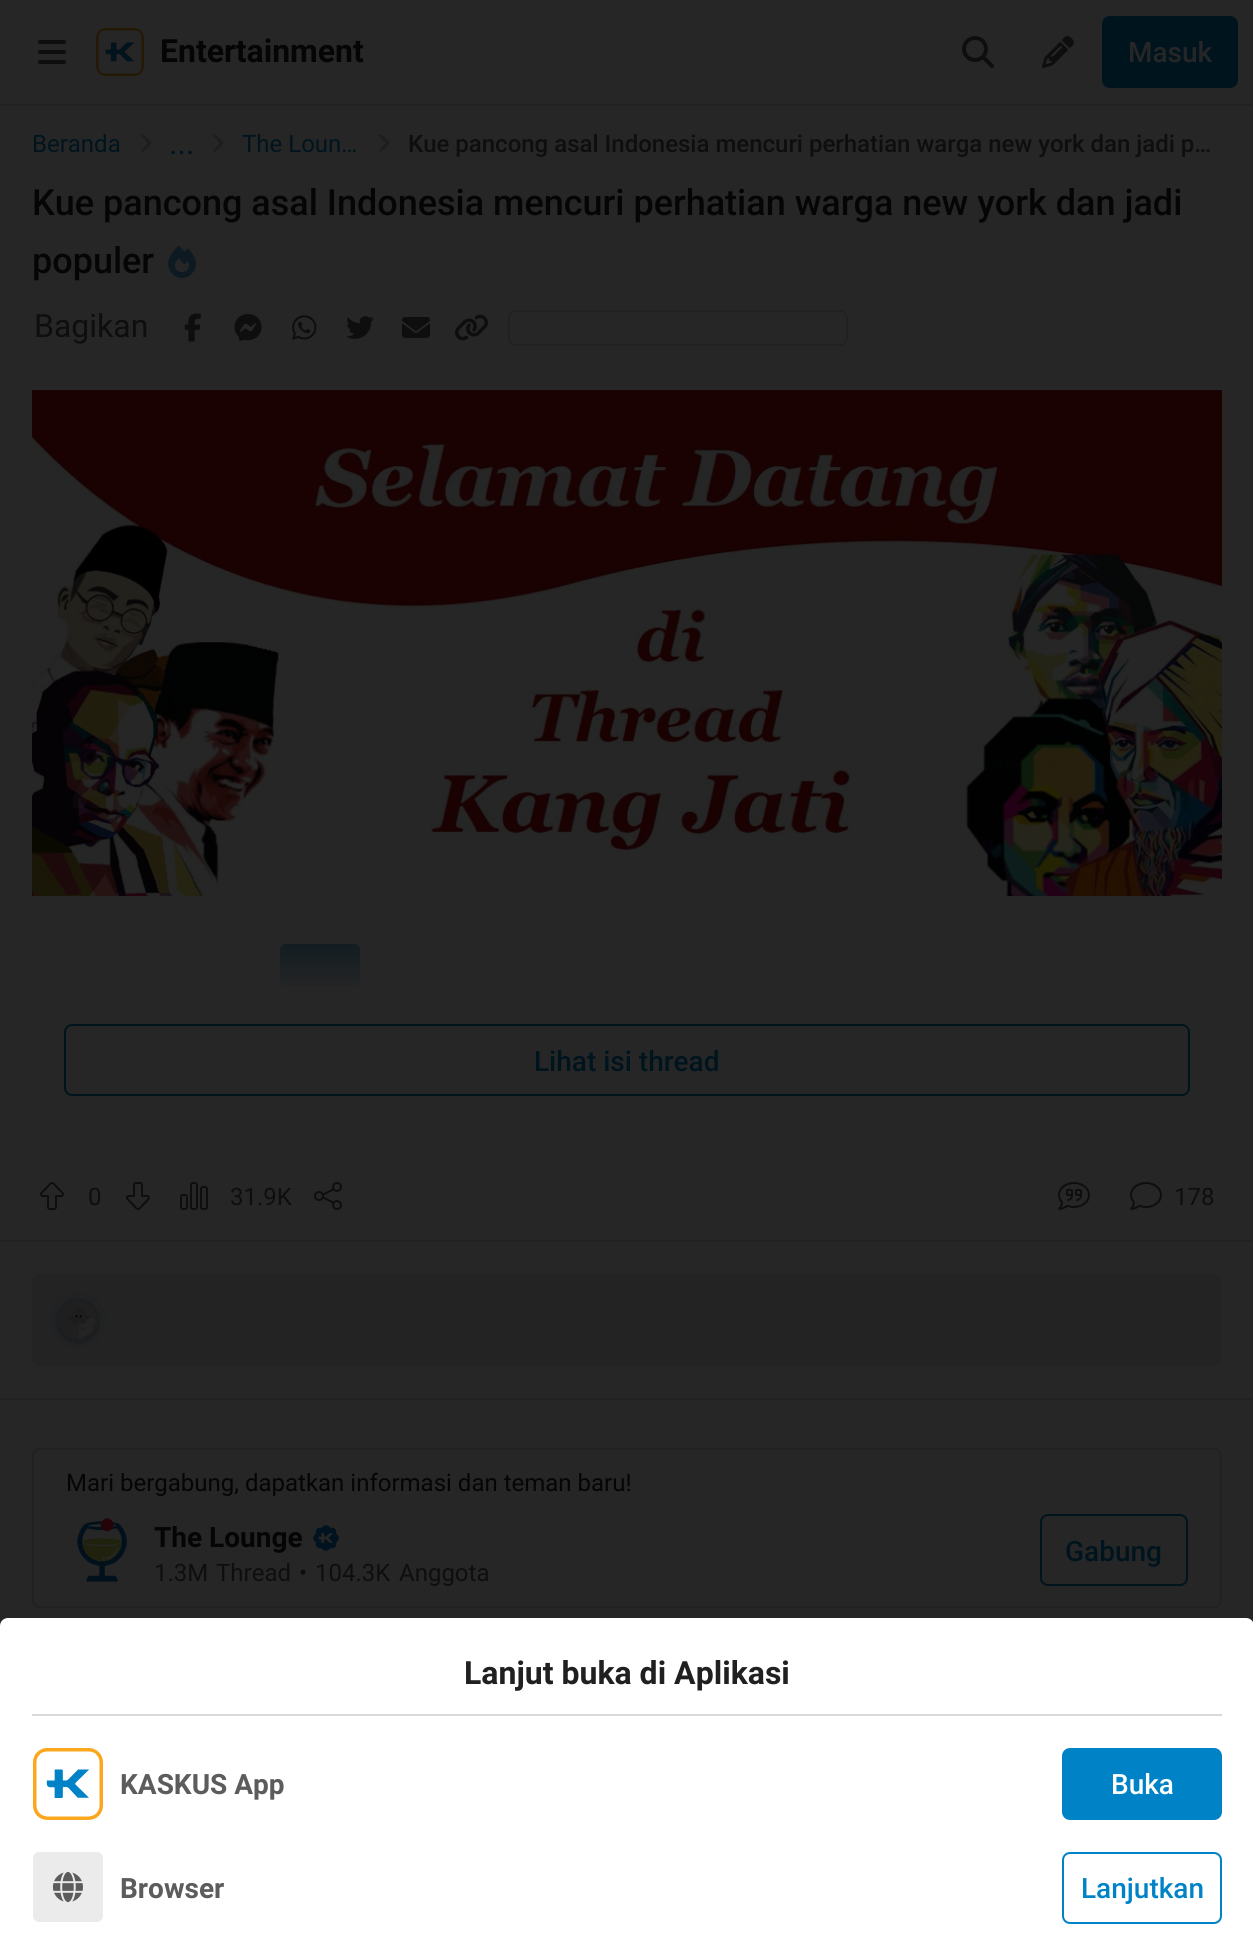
import math
import cairocffi as cairo

surface = cairo.ImageSurface(cairo.FORMAT_RGB24, 1253, 1956)
cr = cairo.Context(surface)
options = cairo.FontOptions()
options.set_hint_metrics(cairo.HINT_METRICS_OFF)
options.set_hint_style(cairo.HINT_STYLE_NONE)
cr.set_font_options(options)
cr.set_miter_limit(4)


def use_color(code):
    cr.set_source_rgb(*(v / 255 for v in bytes.fromhex(code[-6:])))


def round_rect(x, y, w, h, r):
    cr.new_sub_path()
    for i, (u, v) in enumerate([(x + w - r, y + h - r), (x + r, y + h - r), (x + r, y + r), (x + w - r, y + r)]):
        cr.arc(u, v, r, i * math.pi / 2, (i + 1) * math.pi / 2)
    cr.close_path()


def picture(path, x, y, w, h):
    cr.save()
    cr.set_source_surface(cairo.ImageSurface.create_from_png(path), x, y)
    cr.rectangle(x, y, w, h)
    cr.fill()
    cr.restore()


use_color("#262626")
cr.paint()
use_color("#212121")
cr.rectangle(0, 104, 1253, 2)
cr.fill()
picture("img1.png", 38, 40, 28, 24)
picture("img2.png", 96, 28, 48, 48)
cr.select_font_face("Roboto", cairo.FONT_SLANT_NORMAL, cairo.FONT_WEIGHT_BOLD)
cr.set_font_size(32)
use_color("#050505")
cr.move_to(160, 62)
cr.show_text("Entertainment")
picture("img3.png", 962, 36, 32, 32)
picture("img4.png", 1042, 36, 32, 32)
use_color("#00141e")
round_rect(1103, 17, 134, 70, 7)
cr.fill_preserve()
cr.stroke()
cr.select_font_face("Roboto Medium")
cr.set_font_size(28)
use_color("#262626")
cr.move_to(1128, 62)
cr.show_text("Masuk")
cr.select_font_face("Roboto")
cr.set_font_size(24)
use_color("#00141e")
cr.move_to(32, 152)
cr.show_text("Beranda")
picture("img5.png", 141, 134, 11, 18)
picture("img5.png", 213, 134, 11, 18)
cr.set_font_size(32)
cr.move_to(169, 154)
cr.show_text("...")
cr.set_font_size(24)
cr.move_to(242, 152)
cr.show_text("The Loun…")
picture("img5.png", 379, 134, 11, 18)
cr.select_font_face("Roboto Medium")
use_color("#0e0e0e")
cr.move_to(408, 152)
cr.show_text("Kue pancong asal Indonesia mencuri perhatian warga new york dan jadi p…")
use_color("#212121")
cr.rectangle(0, 1398, 1253, 2)
cr.fill()
cr.set_font_size(36)
use_color("#050505")
cr.move_to(32, 215)
cr.show_text("Kue pancong asal Indonesia mencuri perhatian warga new york dan jadi")
cr.move_to(32, 273)
cr.show_text("populer")
picture("img6.png", 168, 246, 28, 32)
cr.select_font_face("Roboto")
cr.set_font_size(32)
use_color("#0e0e0e")
cr.move_to(34, 337)
cr.show_text("Bagikan")
picture("img7.png", 184, 313, 17, 29)
picture("img8.png", 234, 314, 28, 27)
picture("img9.png", 292, 315, 25, 25)
picture("img10.png", 346, 316, 28, 23)
picture("img11.png", 402, 317, 28, 21)
picture("img12.png", 455, 314, 33, 27)
round_rect(509, 311, 338, 34, 7)
use_color("#212121")
cr.stroke()
picture("img13.png", 32, 390, 1190, 506)
use_color("#00131c")
round_rect(280, 944, 80, 42, 6)
cr.fill()
gradient = cairo.LinearGradient(627, 992, 627, 896)
gradient.add_color_stop_rgba(0, 0.149, 0.149, 0.149, 1)
gradient.add_color_stop_rgba(1, 0.149, 0.149, 0.149, 0)
cr.set_source(gradient)
cr.rectangle(280, 944, 80, 42)
cr.fill()
round_rect(65, 1025, 1124, 70, 7)
use_color("#00141e")
cr.stroke()
cr.select_font_face("Roboto Medium")
cr.set_font_size(28)
cr.move_to(534, 1071)
cr.show_text("Lihat isi thread")
picture("img14.png", 40, 1182, 24, 28)
cr.select_font_face("Roboto")
cr.set_font_size(24)
use_color("#0e0e0e")
cr.move_to(88, 1205)
cr.show_text("0")
picture("img15.png", 126, 1182, 24, 28)
picture("img16.png", 180, 1182, 28, 28)
cr.move_to(230, 1205)
cr.show_text("31.9K")
picture("img17.png", 314, 1182, 28, 28)
picture("img18.png", 1058, 1182, 32, 28)
picture("img19.png", 1130, 1182, 32, 28)
cr.move_to(1174, 1205)
cr.show_text("178")
use_color("#212121")
cr.rectangle(0, 1240, 1253, 2)
cr.fill()
use_color("#232323")
round_rect(32, 1274, 1190, 92, 8)
cr.fill()
picture("img21.png", 56, 1298, 44, 46)
picture("img20.png", 50, 1292, 56, 56)
round_rect(33, 1449, 1188, 158, 7)
use_color("#212121")
cr.stroke()
use_color("#050505")
cr.move_to(66, 1491)
cr.show_text("Mari bergabung, dapatkan informasi dan teman baru!")
picture("img22.png", 76, 1517, 52, 65)
cr.select_font_face("Roboto", cairo.FONT_SLANT_NORMAL, cairo.FONT_WEIGHT_BOLD)
cr.set_font_size(28)
cr.move_to(154, 1547)
cr.show_text("The Lounge")
picture("img23.png", 313, 1525, 26, 26)
cr.select_font_face("Roboto")
cr.set_font_size(24)
use_color("#0e0e0e")
cr.move_to(154, 1581)
cr.show_text("1.3M")
cr.move_to(216, 1581)
cr.show_text("Thread")
cr.move_to(299, 1581)
cr.show_text("•")
cr.move_to(315, 1581)
cr.show_text("104.3K")
cr.move_to(399, 1581)
cr.show_text("Anggota")
round_rect(1041, 1515, 146, 70, 7)
use_color("#00141e")
cr.stroke()
cr.select_font_face("Roboto Medium")
cr.set_font_size(28)
cr.move_to(1065, 1561)
cr.show_text("Gabung")
use_color("#ffffff")
cr.new_path()
cr.move_to(8, 1618)
cr.line_to(1246, 1618)
cr.curve_to(1250.5, 1618, 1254, 1621.5, 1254, 1626)
cr.line_to(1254, 1956)
cr.line_to(0, 1956)
cr.line_to(0, 1626)
cr.curve_to(0, 1621.5, 3.5, 1618, 8, 1618)
cr.close_path()
cr.fill()
cr.select_font_face("Roboto", cairo.FONT_SLANT_NORMAL, cairo.FONT_WEIGHT_BOLD)
cr.set_font_size(32)
use_color("#202020")
cr.move_to(464, 1684)
cr.show_text("Lanjut buka di Aplikasi")
use_color("#d9d9d9")
cr.rectangle(32, 1714, 1190, 2)
cr.fill()
picture("img24.png", 33, 1748, 70, 72)
cr.set_font_size(28)
use_color("#5c5c5c")
cr.move_to(120, 1794)
cr.show_text("KASKUS App")
use_color("#0082c6")
round_rect(1063, 1749, 158, 70, 7)
cr.fill_preserve()
cr.stroke()
cr.select_font_face("Roboto Medium")
use_color("#ffffff")
cr.move_to(1111, 1794)
cr.show_text("Buka")
picture("img25.png", 33, 1852, 70, 70)
cr.select_font_face("Roboto", cairo.FONT_SLANT_NORMAL, cairo.FONT_WEIGHT_BOLD)
use_color("#5c5c5c")
cr.move_to(120, 1898)
cr.show_text("Browser")
round_rect(1063, 1853, 158, 70, 7)
use_color("#0082c6")
cr.stroke()
cr.select_font_face("Roboto Medium")
cr.move_to(1081, 1898)
cr.show_text("Lanjutkan")
surface.write_to_png("result.png")
